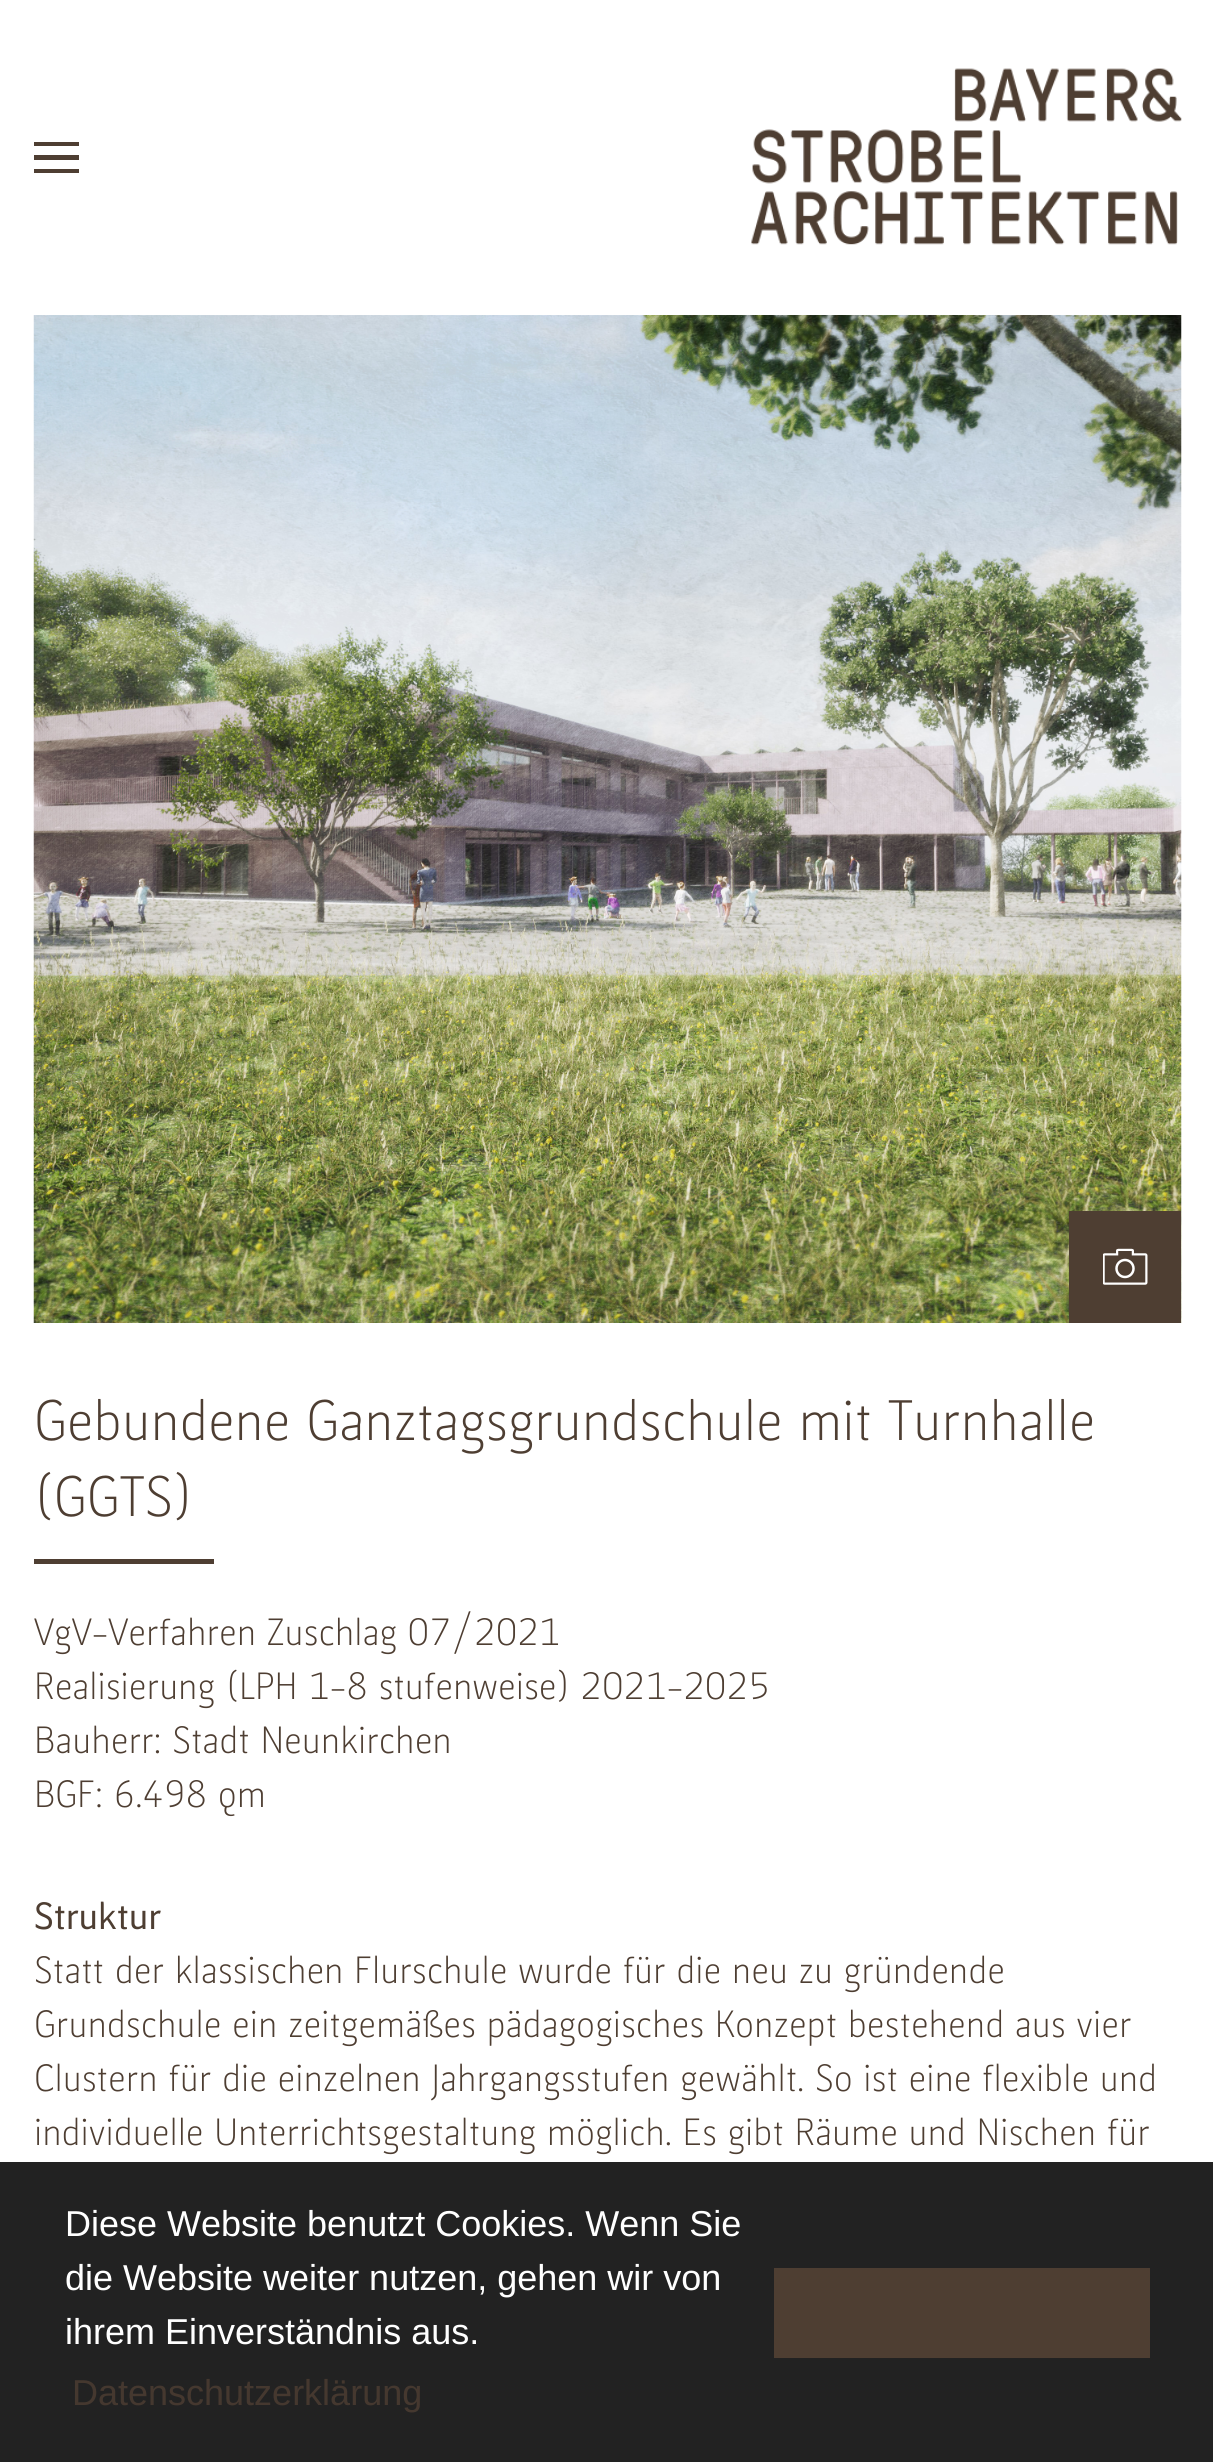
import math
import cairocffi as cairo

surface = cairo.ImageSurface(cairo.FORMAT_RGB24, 1213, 2462)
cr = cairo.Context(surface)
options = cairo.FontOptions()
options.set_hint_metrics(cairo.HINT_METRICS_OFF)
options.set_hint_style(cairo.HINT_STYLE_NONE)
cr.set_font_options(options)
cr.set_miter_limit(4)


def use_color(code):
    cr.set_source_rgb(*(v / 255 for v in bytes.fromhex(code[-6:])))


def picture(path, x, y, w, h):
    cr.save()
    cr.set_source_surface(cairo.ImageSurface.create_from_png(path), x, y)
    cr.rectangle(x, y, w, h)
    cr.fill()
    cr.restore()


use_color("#ffffff")
cr.paint()
use_color("#4e3e32")
cr.rectangle(34, 155, 45, 5)
cr.fill()
cr.rectangle(34, 142, 45, 4)
cr.fill()
cr.rectangle(34, 169, 45, 4)
cr.fill()
picture("img1.png", 751, 68, 431, 177)
picture("img2.png", 33, 315, 1149, 1008)
cr.rectangle(1069, 1211, 112, 112)
cr.fill()
picture("img3.png", 1103, 1248, 45, 37)
cr.select_font_face("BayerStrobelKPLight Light")
cr.set_font_size(54)
cr.move_to(34, 1440)
cr.show_text("Gebundene Ganztagsgrundschule mit Turnhalle")
cr.move_to(34, 1516)
cr.show_text("(GGTS)")
cr.rectangle(34, 1559, 180, 5)
cr.fill()
cr.set_font_size(36)
cr.move_to(34, 1645)
cr.show_text("VgV-Verfahren Zuschlag 07/2021")
cr.move_to(34, 1699)
cr.show_text("Realisierung (LPH 1-8 stufenweise) 2021-2025")
cr.move_to(34, 1753)
cr.show_text("Bauherr: Stadt Neunkirchen")
cr.move_to(34, 1807)
cr.show_text("BGF: 6.498 qm")
cr.select_font_face("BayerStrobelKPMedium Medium")
cr.move_to(34, 1929)
cr.show_text("Struktur")
cr.select_font_face("BayerStrobelKPLight Light")
cr.move_to(34, 1983)
cr.show_text("Statt der klassischen Flurschule wurde für die neu zu gründende")
cr.move_to(34, 2037)
cr.show_text("Grundschule ein zeitgemäßes pädagogisches Konzept bestehend aus vier")
cr.move_to(34, 2091)
cr.show_text("Clustern für die einzelnen Jahrgangsstufen gewählt. So ist eine flexible und")
cr.move_to(34, 2145)
cr.show_text("individuelle Unterrichtsgestaltung möglich. Es gibt Räume und Nischen für")
use_color("#222222")
cr.rectangle(0, 2162, 1213, 300)
cr.fill()
cr.select_font_face("Liberation Sans")
use_color("#ffffff")
cr.move_to(65, 2236)
cr.show_text("Diese Website benutzt Cookies. Wenn Sie")
cr.move_to(65, 2290)
cr.show_text("die Website weiter nutzen, gehen wir von")
cr.move_to(65, 2344)
cr.show_text("ihrem Einverständnis aus.")
use_color("#45382f")
cr.move_to(72, 2405)
cr.show_text("Datenschutzerklärung")
use_color("#4e3e32")
cr.rectangle(774, 2268, 376, 90)
cr.fill()
surface.write_to_png("result.png")
